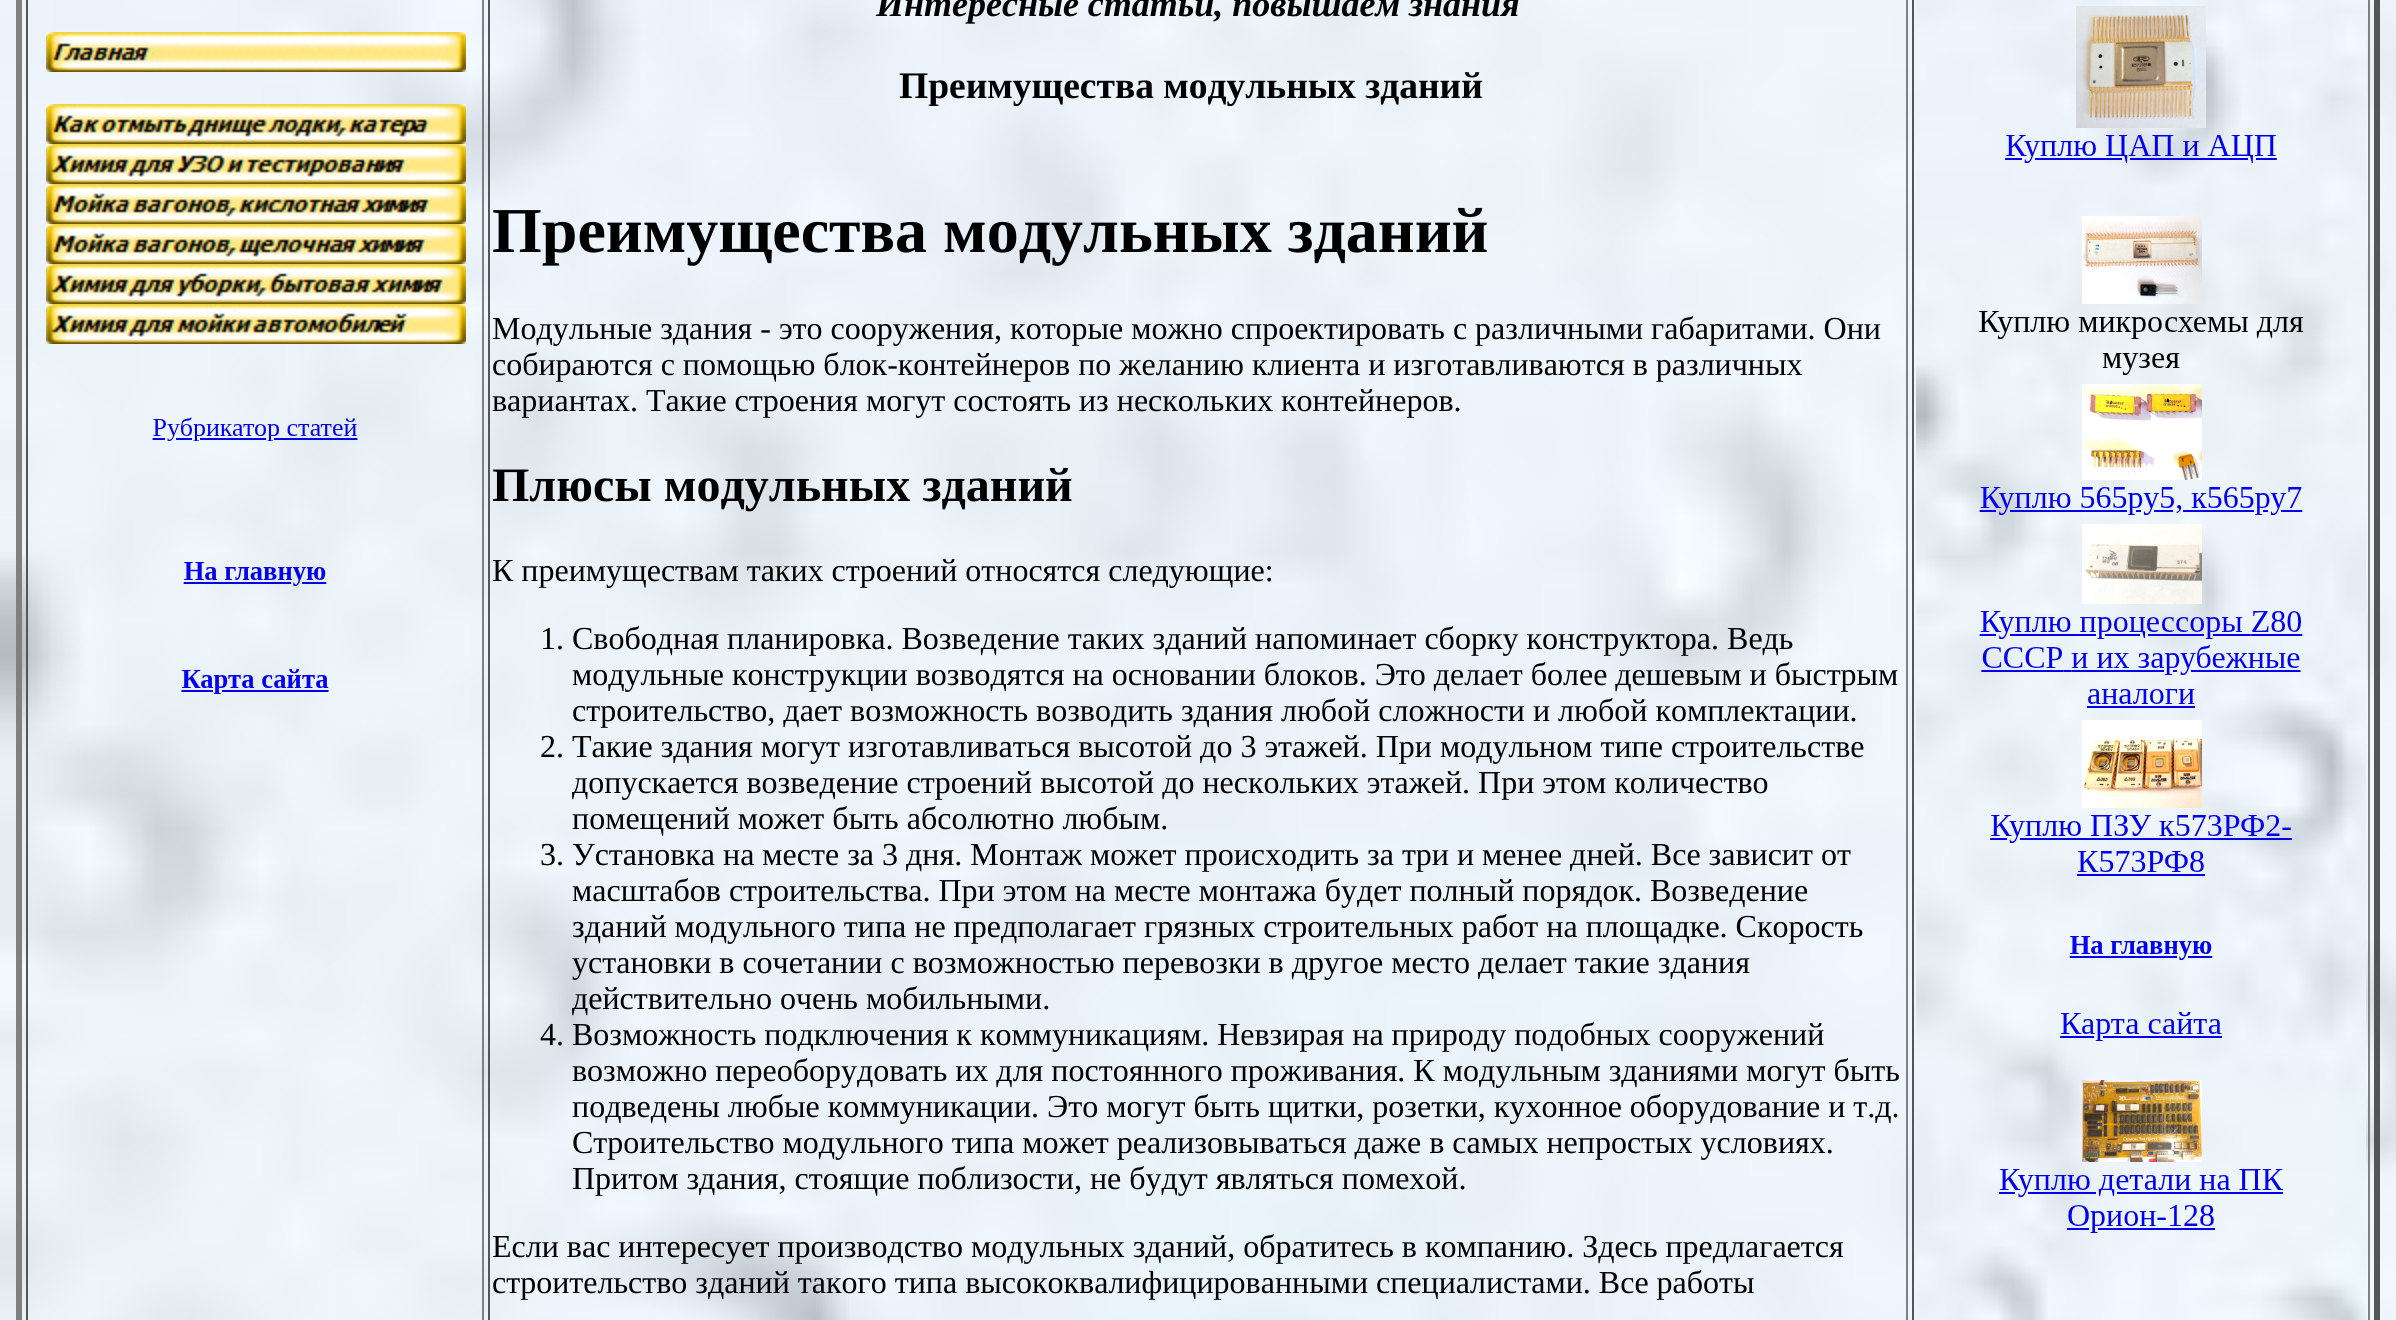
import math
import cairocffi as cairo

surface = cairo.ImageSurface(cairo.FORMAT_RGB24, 2396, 1320)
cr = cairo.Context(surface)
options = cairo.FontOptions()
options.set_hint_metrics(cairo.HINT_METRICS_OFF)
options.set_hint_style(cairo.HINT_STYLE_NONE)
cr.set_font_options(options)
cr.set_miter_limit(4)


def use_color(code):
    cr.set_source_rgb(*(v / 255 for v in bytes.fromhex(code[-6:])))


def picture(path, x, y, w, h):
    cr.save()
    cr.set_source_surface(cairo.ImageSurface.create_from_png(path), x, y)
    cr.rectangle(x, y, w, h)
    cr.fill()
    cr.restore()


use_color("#ffffff")
cr.paint()
picture("img1.png", 0, 0, 2396, 1320)
use_color("#555555")
cr.new_path()
cr.move_to(2380, -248)
cr.line_to(2380, 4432)
cr.line_to(2374, 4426)
cr.line_to(2374, -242)
cr.close_path()
cr.fill()
use_color("#808080")
cr.new_path()
cr.move_to(16, 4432)
cr.line_to(16, -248)
cr.line_to(22, -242)
cr.line_to(22, 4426)
cr.close_path()
cr.fill()
cr.rectangle(482, 0, 2, 1320)
cr.fill()
use_color("#555555")
cr.rectangle(26, 0, 2, 1320)
cr.fill()
picture("img2.png", 46, 32, 420, 662)
use_color("#808080")
cr.rectangle(1906, 0, 2, 1320)
cr.fill()
use_color("#555555")
cr.rectangle(488, 0, 2, 1320)
cr.fill()
cr.select_font_face("Liberation Serif", cairo.FONT_SLANT_ITALIC, cairo.FONT_WEIGHT_BOLD)
cr.set_font_size(36)
use_color("#000000")
cr.move_to(876, 16)
cr.show_text("Интересные статьи, повышаем знания")
cr.select_font_face("Liberation Serif", cairo.FONT_SLANT_NORMAL, cairo.FONT_WEIGHT_BOLD)
cr.set_font_size(37.5)
cr.move_to(899, 98)
cr.show_text("Преимущества модульных зданий")
cr.set_font_size(64)
cr.move_to(492, 252)
cr.show_text("Преимущества модульных зданий")
cr.select_font_face("Liberation Serif")
cr.set_font_size(32)
cr.move_to(492, 339)
cr.show_text("Модульные здания - это сооружения, которые можно спроектировать с различными габаритами. Они")
cr.move_to(492, 375)
cr.show_text("собираются с помощью блок-контейнеров по желанию клиента и изготавливаются в различных")
cr.move_to(492, 411)
cr.show_text("вариантах. Такие строения могут состоять из нескольких контейнеров.")
cr.select_font_face("Liberation Serif", cairo.FONT_SLANT_NORMAL, cairo.FONT_WEIGHT_BOLD)
cr.set_font_size(48)
cr.move_to(492, 501)
cr.show_text("Плюсы модульных зданий")
cr.select_font_face("Liberation Serif")
cr.set_font_size(32)
cr.move_to(492, 581)
cr.show_text("К преимуществам таких строений относятся следующие:")
cr.move_to(540, 649)
cr.show_text("1. Свободная планировка. Возведение таких зданий напоминает сборку конструктора. Ведь")
cr.move_to(572, 685)
cr.show_text("модульные конструкции возводятся на основании блоков. Это делает более дешевым и быстрым")
cr.move_to(572, 721)
cr.show_text("строительство, дает возможность возводить здания любой сложности и любой комплектации.")
cr.move_to(540, 757)
cr.show_text("2. Такие здания могут изготавливаться высотой до 3 этажей. При модульном типе строительстве")
cr.move_to(572, 793)
cr.show_text("допускается возведение строений высотой до нескольких этажей. При этом количество")
cr.move_to(572, 829)
cr.show_text("помещений может быть абсолютно любым.")
cr.move_to(540, 865)
cr.show_text("3. Установка на месте за 3 дня. Монтаж может происходить за три и менее дней. Все зависит от")
cr.move_to(572, 901)
cr.show_text("масштабов строительства. При этом на месте монтажа будет полный порядок. Возведение")
cr.move_to(572, 937)
cr.show_text("зданий модульного типа не предполагает грязных строительных работ на площадке. Скорость")
cr.move_to(572, 973)
cr.show_text("установки в сочетании с возможностью перевозки в другое место делает такие здания")
cr.move_to(572, 1009)
cr.show_text("действительно очень мобильными.")
cr.move_to(540, 1045)
cr.show_text("4. Возможность подключения к коммуникациям. Невзирая на природу подобных сооружений")
cr.move_to(572, 1081)
cr.show_text("возможно переоборудовать их для постоянного проживания. К модульным зданиями могут быть")
cr.move_to(572, 1117)
cr.show_text("подведены любые коммуникации. Это могут быть щитки, розетки, кухонное оборудование и т.д.")
cr.move_to(572, 1153)
cr.show_text("Строительство модульного типа может реализовываться даже в самых непростых условиях.")
cr.move_to(572, 1189)
cr.show_text("Притом здания, стоящие поблизости, не будут являться помехой.")
cr.move_to(492, 1257)
cr.show_text("Если вас интересует производство модульных зданий, обратитесь в компанию. Здесь предлагается")
cr.move_to(492, 1293)
cr.show_text("строительство зданий такого типа высококвалифицированными специалистами. Все работы")
use_color("#808080")
cr.rectangle(2368, 0, 2, 1320)
cr.fill()
use_color("#555555")
cr.rectangle(1912, 0, 2, 1320)
cr.fill()
picture("img3.png", 1916, 0, 450, 1320)
surface.write_to_png("result.png")
